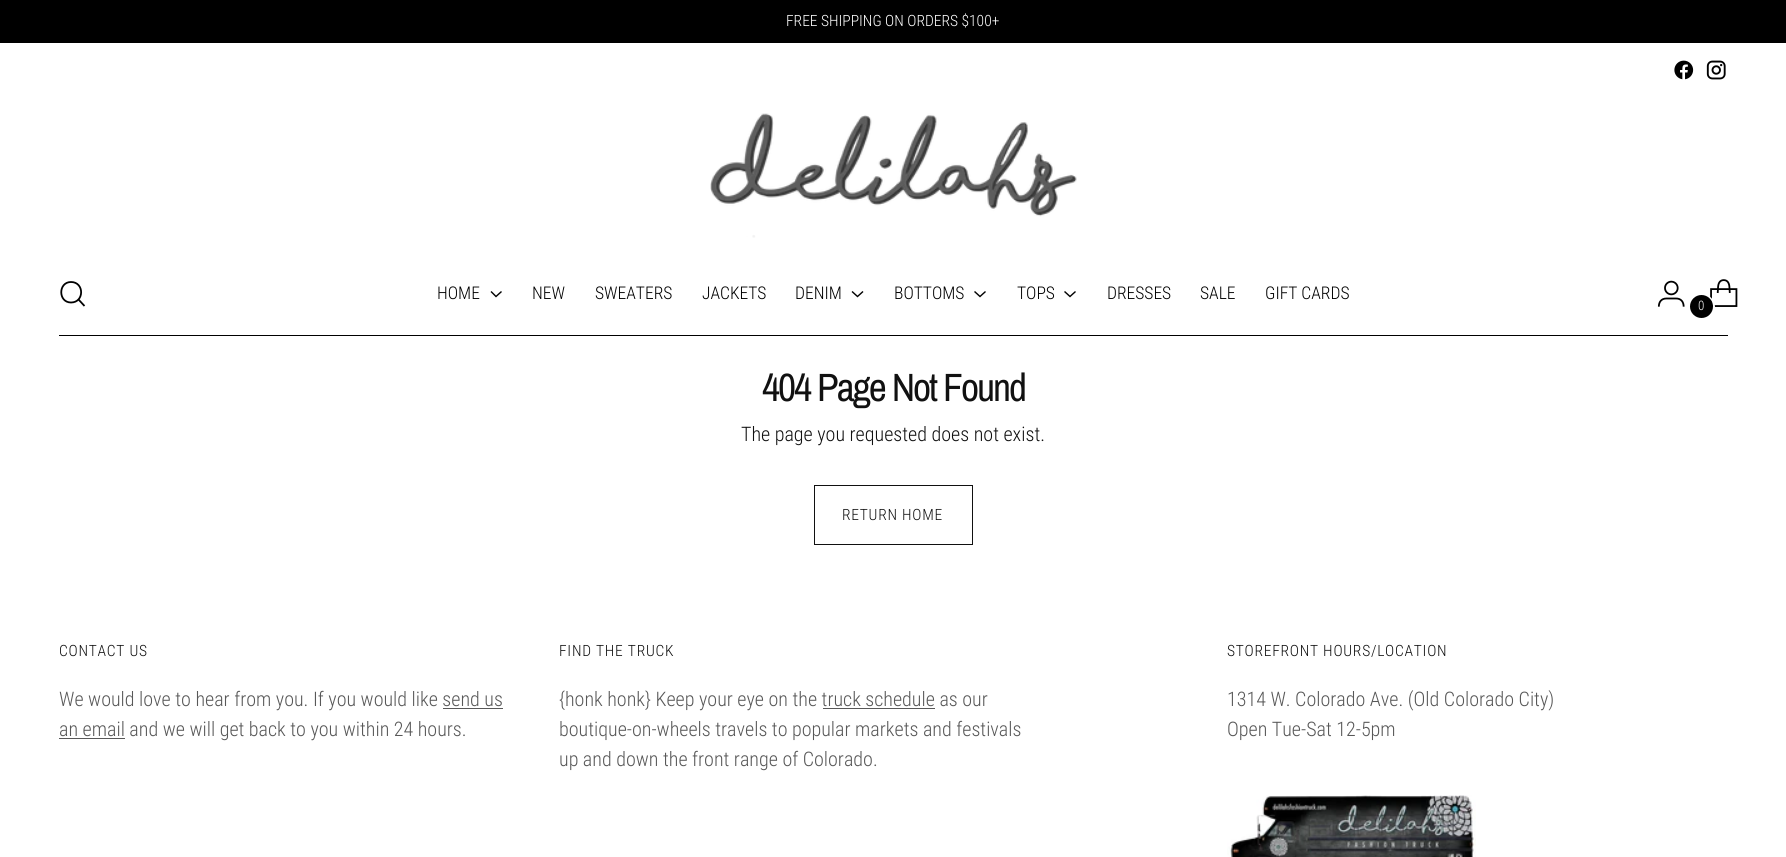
import math
import cairocffi as cairo

surface = cairo.ImageSurface(cairo.FORMAT_RGB24, 1786, 857)
cr = cairo.Context(surface)
options = cairo.FontOptions()
options.set_hint_metrics(cairo.HINT_METRICS_OFF)
options.set_hint_style(cairo.HINT_STYLE_NONE)
cr.set_font_options(options)
cr.set_miter_limit(4)


def use_color(code):
    cr.set_source_rgb(*(v / 255 for v in bytes.fromhex(code[-6:])))


def spaced_text(x, y, s, letter, word):
    cr.move_to(x, y)
    for ch in s:
        cr.show_text(ch)
        cr.rel_move_to(letter + word * (ch == ' '), 0)


def picture(path, x, y, w, h):
    cr.save()
    cr.set_source_surface(cairo.ImageSurface.create_from_png(path), x, y)
    cr.rectangle(x, y, w, h)
    cr.fill()
    cr.restore()


use_color("#ffffff")
cr.paint()
use_color("#000000")
cr.rectangle(0, 0, 1786, 43)
cr.fill()
cr.select_font_face("Roboto Condensed Light")
cr.set_font_size(15.5)
use_color("#ffffff")
cr.move_to(786, 26)
cr.show_text("FREE SHIPPING ON ORDERS $100+")
use_color("#000000")
cr.rectangle(59, 335, 1669, 1)
cr.fill()
picture("img1.png", 1674, 60, 20, 20)
picture("img2.png", 1706, 60, 20, 20)
picture("img3.png", 710, 113, 367, 125)
cr.new_path()
cr.move_to(71, 302.5)
cr.curve_to(84.5, 302.5, 84.5, 282, 71, 282)
cr.curve_to(58, 282, 58, 302.5, 71, 302.5)
cr.close_path()
cr.set_line_width(1.8)
cr.set_line_cap(cairo.LINE_CAP_ROUND)
cr.stroke()
cr.new_path()
cr.move_to(78.5, 299.5)
cr.line_to(84.5, 306)
cr.set_line_cap(cairo.LINE_CAP_BUTT)
cr.stroke()
cr.set_font_size(17.5)
cr.move_to(437, 299)
cr.show_text("HOME")
cr.new_path()
cr.move_to(491, 291.5)
cr.line_to(496, 296.5)
cr.line_to(501.5, 291.5)
cr.set_line_width(1.4)
cr.stroke()
cr.move_to(532, 299)
cr.show_text("NEW")
cr.move_to(595, 299)
cr.show_text("SWEATERS")
cr.move_to(702, 299)
cr.show_text("JACKETS")
cr.move_to(795, 299)
cr.show_text("DENIM")
cr.new_path()
cr.move_to(852, 291.5)
cr.line_to(857.5, 296.5)
cr.line_to(863, 291.5)
cr.stroke()
cr.move_to(894, 299)
cr.show_text("BOTTOMS")
cr.new_path()
cr.move_to(974.5, 291.5)
cr.line_to(980, 296.5)
cr.line_to(985.5, 291.5)
cr.stroke()
cr.move_to(1017, 299)
cr.show_text("TOPS")
cr.new_path()
cr.move_to(1064.5, 291.5)
cr.line_to(1070, 296.5)
cr.line_to(1075.5, 291.5)
cr.stroke()
cr.move_to(1107, 299)
cr.show_text("DRESSES")
cr.move_to(1200, 299)
cr.show_text("SALE")
cr.move_to(1265, 299)
cr.show_text("GIFT CARDS")
picture("img4.png", 1657, 280, 28, 27)
picture("img5.png", 1710, 279, 28, 28)
cr.arc(1702, 307, 12, 0, 2 * math.pi)
use_color("#ffffff")
cr.set_line_width(2)
cr.stroke()
use_color("#000000")
cr.arc(1701.5, 306.5, 11.5, 0, 2 * math.pi)
cr.fill()
cr.set_font_size(13)
use_color("#ffffff")
cr.move_to(1698, 310)
cr.show_text("0")
cr.select_font_face("Archivo Narrow")
cr.set_font_size(39.5)
use_color("#111111")
spaced_text(762, 401, "404 Page Not Found", -2, 0)
cr.select_font_face("Roboto Condensed Light")
cr.set_font_size(20)
cr.move_to(741, 441)
cr.show_text("The page you requested does not exist.")
cr.rectangle(814.5, 485.5, 158, 59)
cr.set_line_width(1)
cr.stroke()
cr.set_font_size(15.5)
spaced_text(842, 520, "RETURN HOME", 0.75, 0)
spaced_text(59, 656, "CONTACT US", 0.75, 0)
cr.set_font_size(20)
use_color("#585858")
cr.move_to(59, 706)
cr.show_text("We would love to hear from you. If you would like send us")
cr.rectangle(59, 738, 66, 1)
cr.fill()
cr.move_to(59, 736)
cr.show_text("an email and we will get back to you within 24 hours.")
cr.rectangle(443, 708, 60, 1)
cr.fill()
cr.set_font_size(15.5)
use_color("#111111")
spaced_text(559, 656, "FIND THE TRUCK", 0.75, 0)
cr.set_font_size(20)
use_color("#585858")
cr.move_to(559, 706)
cr.show_text("{honk honk} Keep your eye on the truck schedule as our")
cr.rectangle(823, 708, 112, 1)
cr.fill()
cr.move_to(559, 736)
cr.show_text("boutique-on-wheels travels to popular markets and festivals")
cr.move_to(559, 766)
cr.show_text("up and down the front range of Colorado.")
cr.set_font_size(15.5)
use_color("#111111")
spaced_text(1227, 656, "STOREFRONT HOURS/LOCATION", 0.75, 0)
cr.set_font_size(20)
use_color("#585858")
cr.move_to(1227, 706)
cr.show_text("1314 W. Colorado Ave. (Old Colorado City)")
cr.move_to(1227, 736)
cr.show_text("Open Tue-Sat 12-5pm")
picture("img6.png", 1227, 795, 249, 62)
surface.write_to_png("result.png")
